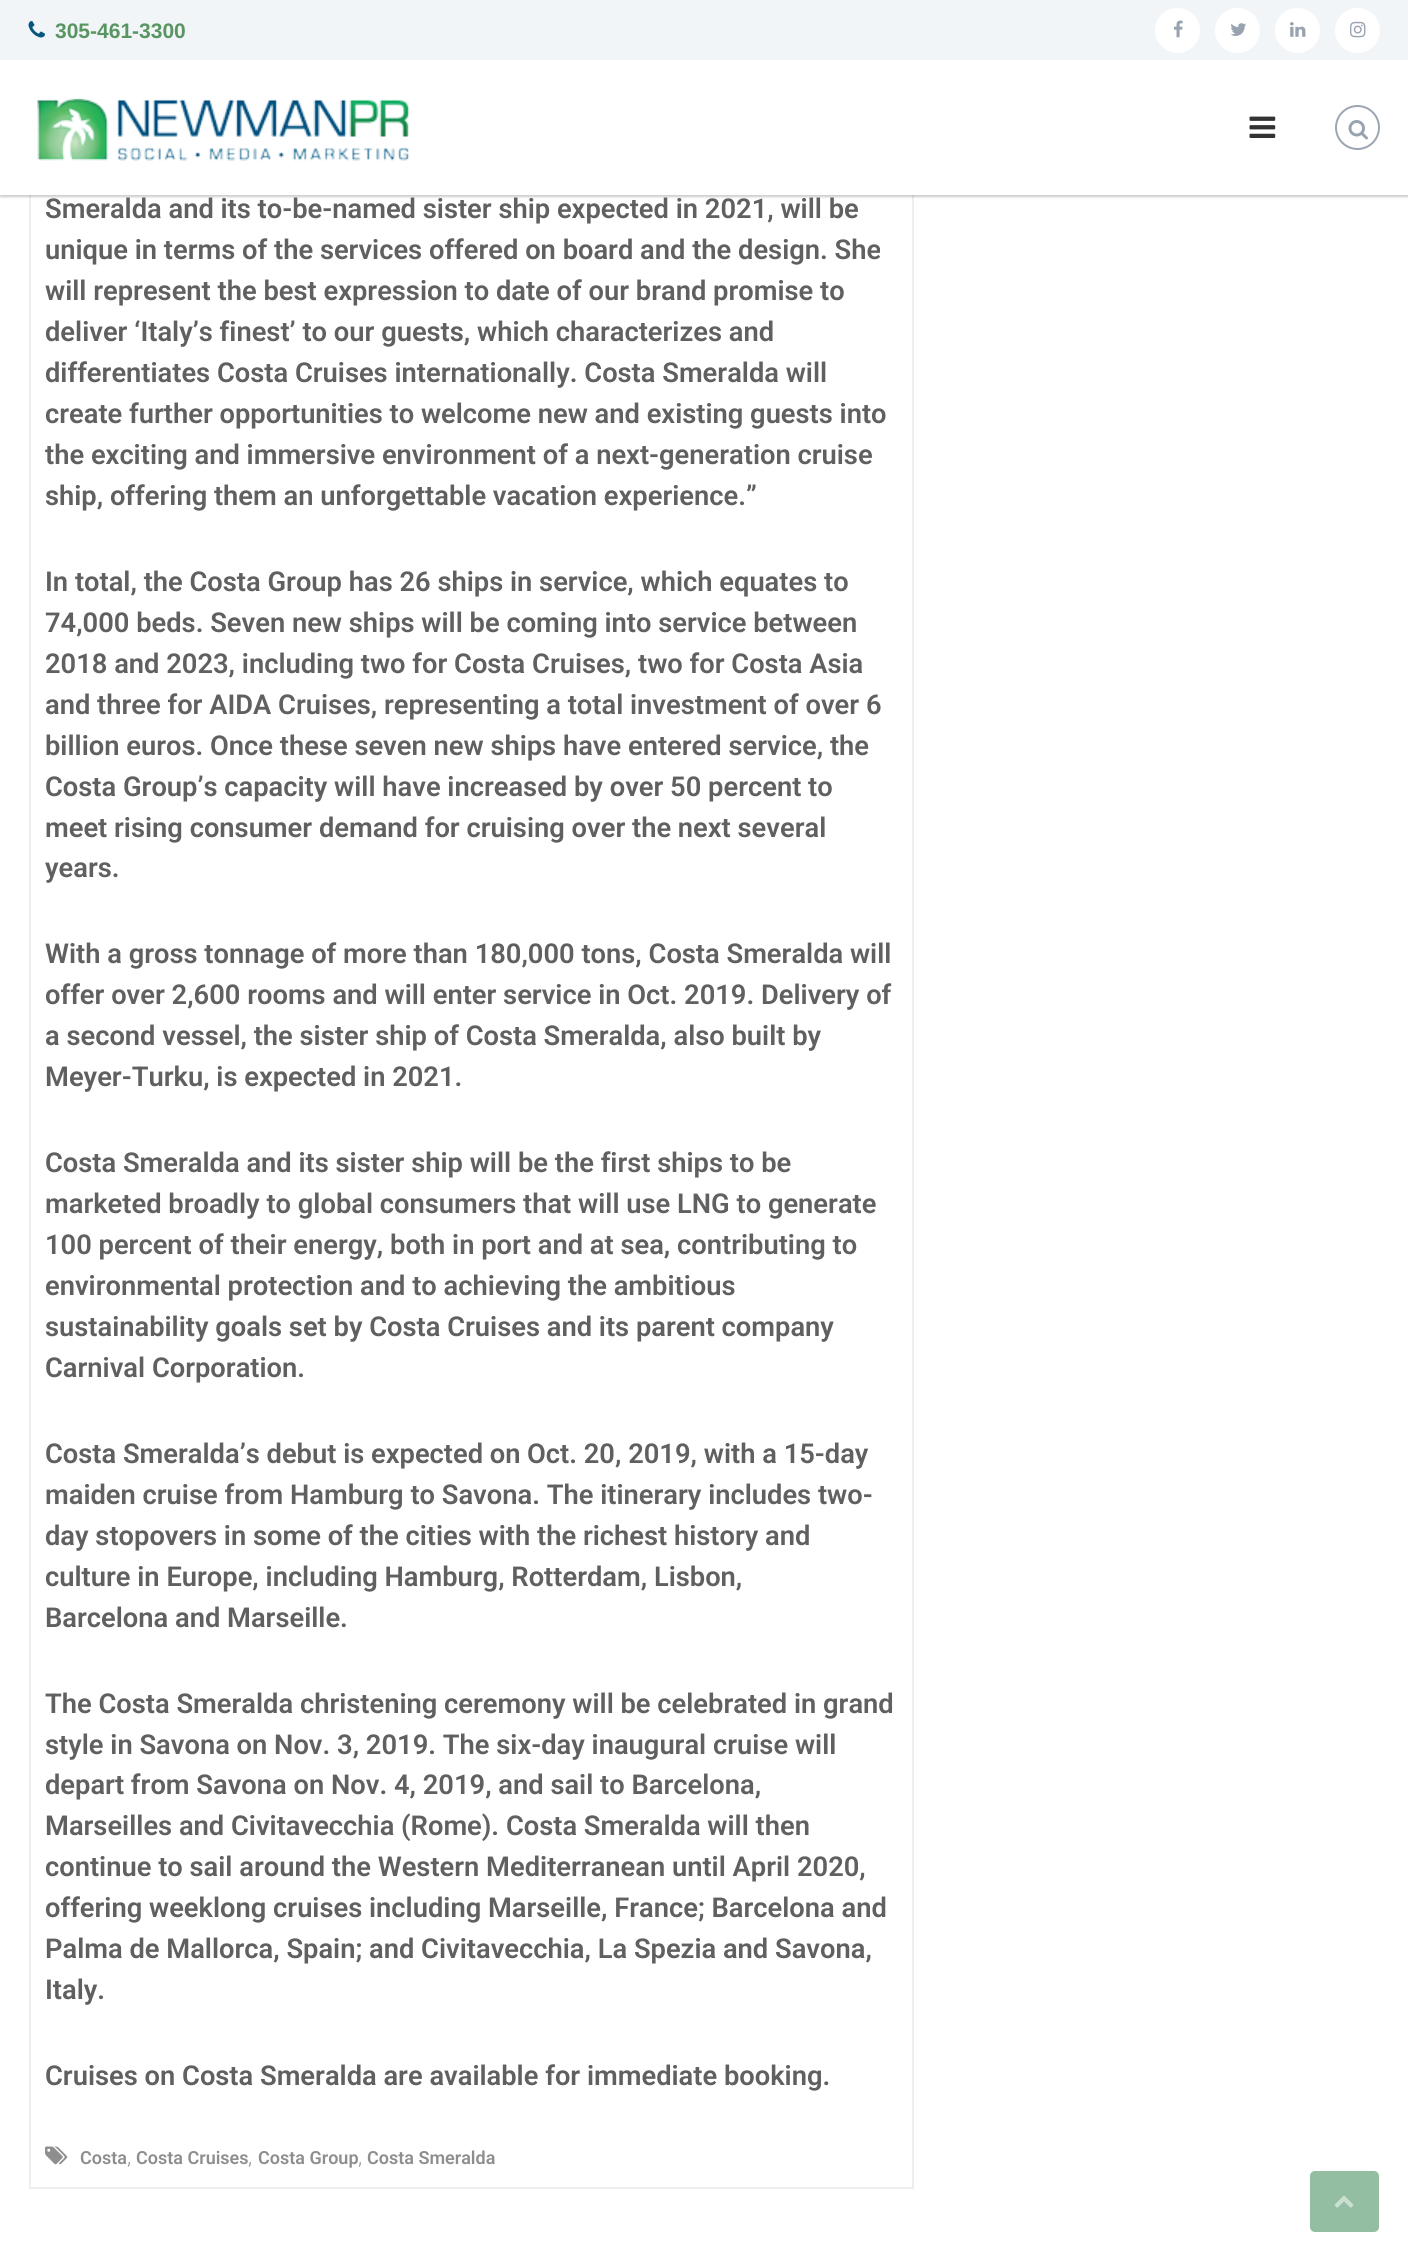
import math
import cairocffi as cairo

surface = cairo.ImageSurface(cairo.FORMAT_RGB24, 1408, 2261)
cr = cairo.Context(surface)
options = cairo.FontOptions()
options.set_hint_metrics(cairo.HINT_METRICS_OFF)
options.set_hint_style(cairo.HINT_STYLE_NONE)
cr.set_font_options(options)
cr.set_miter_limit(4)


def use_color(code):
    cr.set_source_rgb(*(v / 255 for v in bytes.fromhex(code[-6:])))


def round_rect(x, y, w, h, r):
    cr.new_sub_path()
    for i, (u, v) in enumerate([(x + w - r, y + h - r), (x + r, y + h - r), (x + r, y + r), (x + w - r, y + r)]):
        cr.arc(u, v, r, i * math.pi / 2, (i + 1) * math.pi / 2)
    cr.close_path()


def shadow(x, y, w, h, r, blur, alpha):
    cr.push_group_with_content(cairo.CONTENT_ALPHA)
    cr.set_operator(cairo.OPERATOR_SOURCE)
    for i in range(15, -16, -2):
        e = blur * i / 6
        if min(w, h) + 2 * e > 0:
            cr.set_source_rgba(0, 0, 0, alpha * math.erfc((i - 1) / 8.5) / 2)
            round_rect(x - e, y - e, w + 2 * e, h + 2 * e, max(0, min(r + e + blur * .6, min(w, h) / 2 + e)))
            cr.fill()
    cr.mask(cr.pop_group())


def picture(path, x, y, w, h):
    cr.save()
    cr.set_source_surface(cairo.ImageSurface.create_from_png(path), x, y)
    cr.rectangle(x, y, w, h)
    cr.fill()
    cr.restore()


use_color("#ffffff")
cr.paint()
cr.rectangle(30, -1, 883, 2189)
use_color("#eeeeee")
cr.stroke()
use_color("#f1f5f8")
cr.rectangle(0, 0, 1408, 60)
cr.fill()
picture("img1.png", 28, 21, 17, 17)
cr.select_font_face("Liberation Sans", cairo.FONT_SLANT_NORMAL, cairo.FONT_WEIGHT_BOLD)
cr.set_font_size(21)
use_color("#599561")
cr.move_to(55, 38)
cr.show_text("305-461-3300")
use_color("#ffffff")
cr.new_path()
cr.arc(1177.5, 30.5, 22.5, 0, 2 * math.pi)
cr.fill()
picture("img2.png", 1173, 20, 10, 18)
cr.arc(1237.5, 30.5, 22.5, 0, 2 * math.pi)
cr.fill()
picture("img3.png", 1230, 23, 16, 13)
cr.arc(1297.5, 30.5, 22.5, 0, 2 * math.pi)
cr.fill()
picture("img4.png", 1290, 22, 16, 15)
cr.arc(1357.5, 30.5, 22.5, 0, 2 * math.pi)
cr.fill()
picture("img5.png", 1350, 21, 16, 17)
use_color("#000000")
shadow(0, 62, 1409, 135, 0, 1, 0.2)
use_color("#ffffff")
cr.rectangle(0, 60, 1408, 135)
cr.fill()
picture("img6.png", 37, 98, 373, 63)
picture("img7.png", 1249, 116, 27, 22)
cr.arc(1357.5, 127.5, 21.5, 0, 2 * math.pi)
use_color("#9ca6b2")
cr.stroke()
picture("img8.png", 1348, 120, 20, 20)
cr.select_font_face("Roboto SemiBold")
cr.set_font_size(27.3)
use_color("#606060")
cr.move_to(45, 218)
cr.show_text("Smeralda and its to-be-named sister ship expected in 2021, will be")
cr.move_to(45, 259)
cr.show_text("unique in terms of the services offered on board and the design. She")
cr.move_to(45, 300)
cr.show_text("will represent the best expression to date of our brand promise to")
cr.move_to(45, 341)
cr.show_text("deliver ‘Italy’s finest’ to our guests, which characterizes and")
cr.move_to(45, 382)
cr.show_text("differentiates Costa Cruises internationally. Costa Smeralda will")
cr.move_to(45, 423)
cr.show_text("create further opportunities to welcome new and existing guests into")
cr.move_to(45, 464)
cr.show_text("the exciting and immersive environment of a next-generation cruise")
cr.move_to(45, 505)
cr.show_text("ship, offering them an unforgettable vacation experience.”")
cr.move_to(45, 591)
cr.show_text("In total, the Costa Group has 26 ships in service, which equates to")
cr.move_to(45, 632)
cr.show_text("74,000 beds. Seven new ships will be coming into service between")
cr.move_to(45, 673)
cr.show_text("2018 and 2023, including two for Costa Cruises, two for Costa Asia")
cr.move_to(45, 714)
cr.show_text("and three for AIDA Cruises, representing a total investment of over 6")
cr.move_to(45, 755)
cr.show_text("billion euros. Once these seven new ships have entered service, the")
cr.move_to(45, 796)
cr.show_text("Costa Group’s capacity will have increased by over 50 percent to")
cr.move_to(45, 837)
cr.show_text("meet rising consumer demand for cruising over the next several")
cr.move_to(45, 877)
cr.show_text("years.")
cr.move_to(45, 963)
cr.show_text("With a gross tonnage of more than 180,000 tons, Costa Smeralda will")
cr.move_to(45, 1004)
cr.show_text("offer over 2,600 rooms and will enter service in Oct. 2019. Delivery of")
cr.move_to(45, 1045)
cr.show_text("a second vessel, the sister ship of Costa Smeralda, also built by")
cr.move_to(45, 1086)
cr.show_text("Meyer-Turku, is expected in 2021.")
cr.move_to(45, 1172)
cr.show_text("Costa Smeralda and its sister ship will be the first ships to be")
cr.move_to(45, 1213)
cr.show_text("marketed broadly to global consumers that will use LNG to generate")
cr.move_to(45, 1254)
cr.show_text("100 percent of their energy, both in port and at sea, contributing to")
cr.move_to(45, 1295)
cr.show_text("environmental protection and to achieving the ambitious")
cr.move_to(45, 1336)
cr.show_text("sustainability goals set by Costa Cruises and its parent company")
cr.move_to(45, 1377)
cr.show_text("Carnival Corporation.")
cr.move_to(45, 1463)
cr.show_text("Costa Smeralda’s debut is expected on")
cr.move_to(527, 1463)
cr.show_text("Oct. 20, 2019, with a 15-day")
cr.move_to(45, 1504)
cr.show_text("maiden cruise from Hamburg to Savona. The itinerary includes two-")
cr.move_to(45, 1545)
cr.show_text("day stopovers in some of the cities with the richest history and")
cr.move_to(45, 1586)
cr.show_text("culture in Europe, including Hamburg, Rotterdam, Lisbon,")
cr.move_to(45, 1627)
cr.show_text("Barcelona and Marseille.")
cr.move_to(45, 1713)
cr.show_text("The Costa Smeralda christening ceremony will be celebrated in grand")
cr.move_to(45, 1754)
cr.show_text("style in Savona on Nov. 3, 2019. The six-day inaugural cruise will")
cr.move_to(45, 1794)
cr.show_text("depart from Savona on Nov. 4, 2019, and sail to Barcelona,")
cr.move_to(45, 1835)
cr.show_text("Marseilles and Civitavecchia (Rome). Costa Smeralda will then")
cr.move_to(45, 1876)
cr.show_text("continue to sail around the Western Mediterranean until April 2020,")
cr.move_to(45, 1917)
cr.show_text("offering weeklong cruises including Marseille, France; Barcelona and")
cr.move_to(45, 1958)
cr.show_text("Palma de Mallorca, Spain; and Civitavecchia, La Spezia and Savona,")
cr.move_to(45, 1999)
cr.show_text("Italy.")
cr.move_to(45, 2085)
cr.show_text("Cruises on Costa Smeralda are available for immediate booking.")
picture("img9.png", 45, 2146, 23, 19)
cr.set_font_size(18)
use_color("#8e8e8e")
cr.move_to(80, 2164)
cr.show_text("Costa")
cr.select_font_face("Roboto Light")
cr.set_font_size(21)
cr.move_to(127, 2164)
cr.show_text(",")
cr.select_font_face("Roboto SemiBold")
cr.set_font_size(18)
cr.move_to(136, 2164)
cr.show_text("Costa Cruises")
cr.select_font_face("Roboto Light")
cr.set_font_size(21)
cr.move_to(248, 2164)
cr.show_text(",")
cr.select_font_face("Roboto SemiBold")
cr.set_font_size(18)
cr.move_to(258, 2164)
cr.show_text("Costa Group")
cr.select_font_face("Roboto Light")
cr.set_font_size(21)
cr.move_to(358, 2164)
cr.show_text(",")
cr.select_font_face("Roboto SemiBold")
cr.set_font_size(18)
cr.move_to(367, 2164)
cr.show_text("Costa Smeralda")
use_color("#93bea2")
round_rect(1310, 2171, 69, 61, 5)
cr.fill()
picture("img10.png", 1334, 2195, 20, 13)
surface.write_to_png("result.png")
